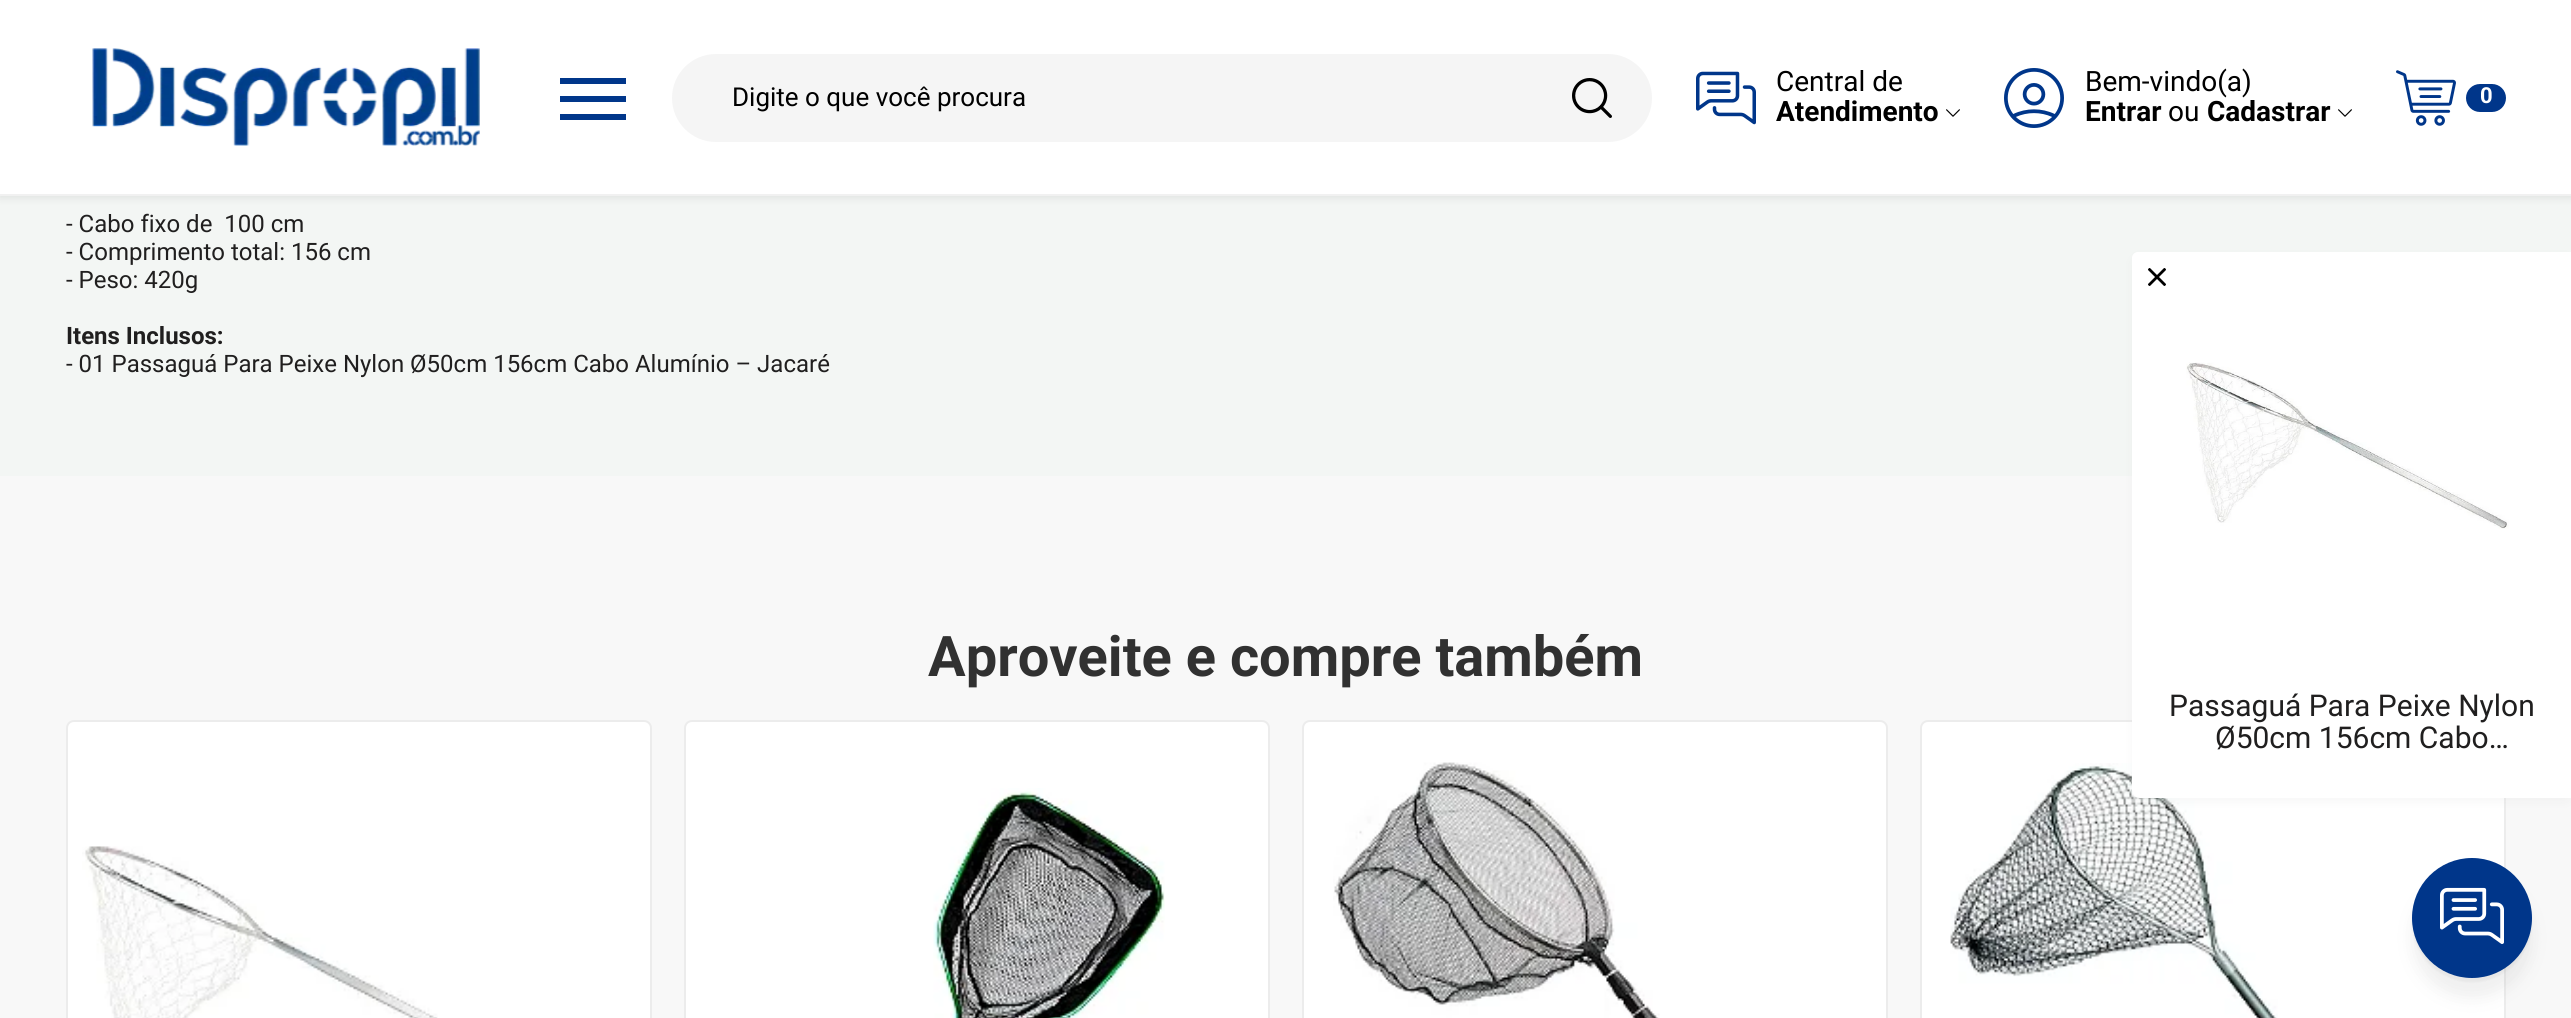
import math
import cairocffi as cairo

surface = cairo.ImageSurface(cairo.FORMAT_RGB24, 2571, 1018)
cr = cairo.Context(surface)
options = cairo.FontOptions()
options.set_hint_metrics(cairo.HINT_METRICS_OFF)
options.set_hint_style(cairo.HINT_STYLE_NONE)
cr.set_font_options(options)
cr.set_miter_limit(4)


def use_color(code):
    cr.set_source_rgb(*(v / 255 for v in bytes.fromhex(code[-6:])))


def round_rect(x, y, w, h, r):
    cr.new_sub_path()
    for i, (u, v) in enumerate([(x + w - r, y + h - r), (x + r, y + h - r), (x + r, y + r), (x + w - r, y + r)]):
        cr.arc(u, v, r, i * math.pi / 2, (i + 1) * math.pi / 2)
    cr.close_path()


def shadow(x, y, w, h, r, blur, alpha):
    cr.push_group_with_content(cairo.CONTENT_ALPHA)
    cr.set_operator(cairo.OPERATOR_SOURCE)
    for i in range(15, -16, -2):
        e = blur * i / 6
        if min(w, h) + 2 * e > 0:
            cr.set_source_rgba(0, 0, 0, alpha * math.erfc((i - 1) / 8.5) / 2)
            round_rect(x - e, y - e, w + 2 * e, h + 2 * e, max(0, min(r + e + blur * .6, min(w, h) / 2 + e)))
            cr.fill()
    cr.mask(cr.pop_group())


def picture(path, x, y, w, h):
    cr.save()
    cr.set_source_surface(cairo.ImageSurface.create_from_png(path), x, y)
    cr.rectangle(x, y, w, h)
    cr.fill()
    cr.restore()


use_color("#f8f8f8")
cr.paint()
use_color("#f3f6f4")
cr.rectangle(0, 196, 2571, 280)
cr.fill()
use_color("#525252")
shadow(0, 2, 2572, 196, 0, 4, 0.13)
use_color("#ffffff")
cr.rectangle(0, 0, 2571, 194)
cr.fill()
use_color("#f1f1f1")
cr.rectangle(0, 194, 2571, 2)
cr.fill()
picture("img1.png", 92, 48, 388, 98)
use_color("#00368a")
cr.rectangle(560, 114, 66, 6)
cr.fill()
cr.rectangle(560, 78, 66, 6)
cr.fill()
cr.rectangle(560, 96, 66, 6)
cr.fill()
use_color("#f5f5f5")
round_rect(672, 54, 980, 88, 44)
cr.fill()
cr.select_font_face("Roboto")
cr.set_font_size(26)
use_color("#000000")
cr.move_to(732, 106)
cr.show_text("Digite o que você procura")
picture("img2.png", 1572, 78, 40, 40)
picture("img3.png", 1696, 71, 60, 54)
cr.set_font_size(28)
cr.move_to(1776, 91)
cr.show_text("Central de")
cr.select_font_face("Roboto", cairo.FONT_SLANT_NORMAL, cairo.FONT_WEIGHT_BOLD)
cr.move_to(1776, 121)
cr.show_text("Atendimento")
picture("img4.png", 1946, 109, 14, 8)
picture("img5.png", 2004, 68, 60, 60)
cr.select_font_face("Roboto")
cr.move_to(2085, 91)
cr.show_text("Bem-vindo(a)")
cr.select_font_face("Roboto", cairo.FONT_SLANT_NORMAL, cairo.FONT_WEIGHT_BOLD)
cr.move_to(2085, 121)
cr.show_text("Entrar")
cr.select_font_face("Roboto")
cr.move_to(2168, 121)
cr.show_text("ou")
cr.select_font_face("Roboto", cairo.FONT_SLANT_NORMAL, cairo.FONT_WEIGHT_BOLD)
cr.move_to(2207, 121)
cr.show_text("Cadastrar")
picture("img4.png", 2338, 109, 14, 8)
picture("img6.png", 2396, 70, 60, 56)
use_color("#00368a")
round_rect(2466, 84, 40, 28, 14)
cr.fill()
cr.set_font_size(22)
use_color("#ffffff")
cr.move_to(2480, 103)
cr.show_text("0")
cr.select_font_face("Roboto")
cr.set_font_size(24)
use_color("#201f1f")
cr.move_to(66, 232)
cr.show_text("- Cabo fixo de  100 cm")
cr.move_to(66, 260)
cr.show_text("- Comprimento total: 156 cm")
cr.move_to(66, 288)
cr.show_text("- Peso: 420g")
cr.select_font_face("Roboto", cairo.FONT_SLANT_NORMAL, cairo.FONT_WEIGHT_BOLD)
cr.move_to(66, 344)
cr.show_text("Itens Inclusos:")
cr.select_font_face("Roboto")
cr.move_to(66, 372)
cr.show_text("- 01 Passaguá Para Peixe Nylon Ø50cm 156cm Cabo Alumínio – Jacaré")
cr.select_font_face("Roboto", cairo.FONT_SLANT_NORMAL, cairo.FONT_WEIGHT_BOLD)
cr.set_font_size(56)
use_color("#313131")
cr.move_to(928, 676)
cr.show_text("Aproveite e compre também")
use_color("#ffffff")
round_rect(67, 721, 584, 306, 7)
cr.fill_preserve()
use_color("#ececec")
cr.stroke()
picture("img7.png", 82, 846, 356, 172)
use_color("#ffffff")
round_rect(685, 721, 584, 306, 7)
cr.fill_preserve()
use_color("#ececec")
cr.stroke()
picture("img8.png", 933, 788, 232, 230)
use_color("#ffffff")
round_rect(1303, 721, 584, 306, 7)
cr.fill_preserve()
use_color("#ececec")
cr.stroke()
picture("img9.png", 1333, 762, 327, 256)
use_color("#ffffff")
round_rect(1921, 721, 584, 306, 7)
cr.fill_preserve()
use_color("#ececec")
cr.stroke()
picture("img10.png", 1950, 763, 328, 255)
use_color("#cdcdcd")
shadow(2132, 256, 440, 546, 8, 4.5, 0.16)
use_color("#ffffff")
cr.new_path()
cr.move_to(2140, 252)
cr.line_to(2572, 252)
cr.line_to(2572, 798)
cr.line_to(2140, 798)
cr.curve_to(2135.5, 798, 2132, 794.5, 2132, 790)
cr.line_to(2132, 260)
cr.curve_to(2132, 255.5, 2135.5, 252, 2140, 252)
cr.close_path()
cr.fill()
round_rect(2132, 252, 50, 50, 6)
cr.fill()
picture("img11.png", 2148, 268, 18, 18)
picture("img12.png", 2186, 362, 323, 167)
cr.select_font_face("Roboto")
cr.set_font_size(30)
use_color("#201f1f")
cr.move_to(2169, 716)
cr.show_text("Passaguá Para Peixe Nylon")
cr.move_to(2215, 748)
cr.show_text("Ø50cm 156cm Cabo…")
use_color("#676767")
shadow(2412, 878, 120, 120, 60, 8, 0.1)
use_color("#000000")
shadow(2412, 862, 120, 120, 60, 1, 0.04)
use_color("#00368a")
cr.arc(2472, 918, 60, 0, 2 * math.pi)
cr.fill()
picture("img13.png", 2440, 887, 64, 57)
surface.write_to_png("result.png")
